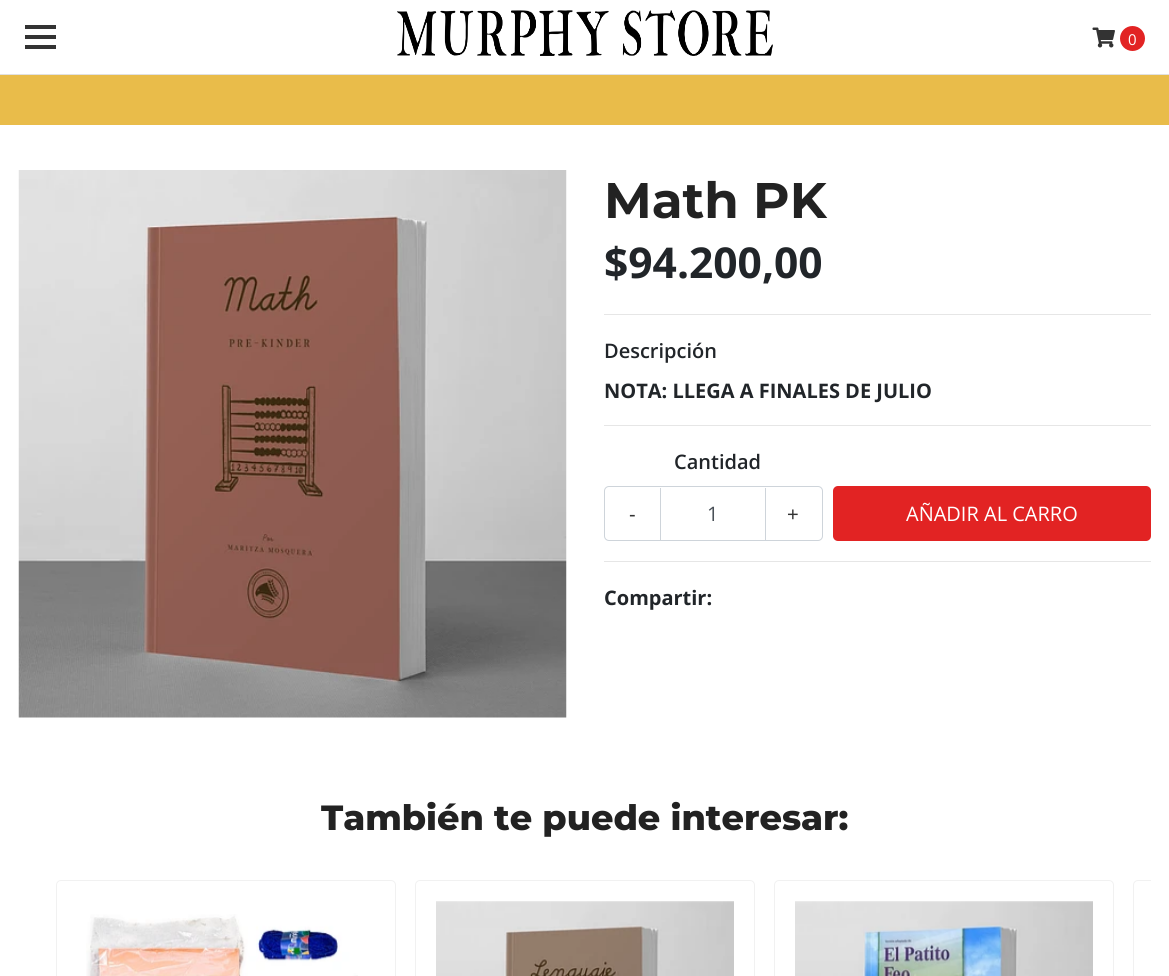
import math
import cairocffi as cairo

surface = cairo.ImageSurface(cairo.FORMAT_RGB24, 1169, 976)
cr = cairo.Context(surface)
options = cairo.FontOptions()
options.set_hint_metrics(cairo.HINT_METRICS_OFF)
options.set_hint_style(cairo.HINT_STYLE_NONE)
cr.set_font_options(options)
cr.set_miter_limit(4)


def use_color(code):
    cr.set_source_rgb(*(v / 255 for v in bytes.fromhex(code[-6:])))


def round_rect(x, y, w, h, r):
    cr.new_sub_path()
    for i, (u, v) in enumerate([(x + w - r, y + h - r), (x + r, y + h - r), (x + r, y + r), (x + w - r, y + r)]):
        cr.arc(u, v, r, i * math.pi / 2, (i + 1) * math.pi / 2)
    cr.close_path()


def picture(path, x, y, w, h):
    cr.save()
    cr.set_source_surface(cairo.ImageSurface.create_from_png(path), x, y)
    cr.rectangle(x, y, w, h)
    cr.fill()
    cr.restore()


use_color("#ffffff")
cr.paint()
use_color("#333333")
cr.rectangle(25, 25, 31, 4)
cr.fill()
cr.rectangle(25, 35, 31, 4)
cr.fill()
cr.rectangle(25, 45, 31, 4)
cr.fill()
use_color("#e1e1e1")
cr.rectangle(0, 74, 1169, 1)
cr.fill()
picture("img1.png", 397, 10, 376, 46)
picture("img2.png", 1092, 27, 23, 21)
use_color("#e22323")
cr.arc(1132.5, 38.5, 12.5, 0, 2 * math.pi)
cr.fill()
cr.select_font_face("Open Sans")
cr.set_font_size(15)
use_color("#ffffff")
cr.move_to(1128, 45)
cr.show_text("0")
use_color("#e9bc4a")
cr.rectangle(0, 75, 1169, 50)
cr.fill()
picture("img3.png", 18, 170, 549, 548)
use_color("#e6e6e6")
cr.rectangle(604, 314, 547, 1)
cr.fill()
cr.select_font_face("Montserrat", cairo.FONT_SLANT_NORMAL, cairo.FONT_WEIGHT_BOLD)
cr.set_font_size(50)
use_color("#222222")
cr.move_to(604, 218)
cr.show_text("Math PK")
cr.select_font_face("Open Sans", cairo.FONT_SLANT_NORMAL, cairo.FONT_WEIGHT_BOLD)
cr.set_font_size(42.5)
use_color("#212529")
cr.move_to(604, 278)
cr.show_text("$94.200,00")
use_color("#e6e6e6")
cr.rectangle(604, 425, 547, 1)
cr.fill()
cr.select_font_face("Open Sans SemiBold")
cr.set_font_size(20)
use_color("#212529")
cr.move_to(604, 358)
cr.show_text("Descripción")
cr.select_font_face("Open Sans", cairo.FONT_SLANT_NORMAL, cairo.FONT_WEIGHT_BOLD)
cr.move_to(604, 398)
cr.show_text("NOTA: LLEGA A FINALES DE JULIO")
use_color("#e6e6e6")
cr.rectangle(604, 561, 547, 1)
cr.fill()
cr.select_font_face("Open Sans SemiBold")
use_color("#212529")
cr.move_to(674, 469)
cr.show_text("Cantidad")
round_rect(604.5, 486.5, 218, 54, 4.5)
use_color("#ced4da")
cr.set_line_width(1)
cr.stroke()
cr.select_font_face("Open Sans")
use_color("#495057")
cr.move_to(707, 521)
cr.show_text("1")
use_color("#ced4da")
cr.rectangle(660, 488, 1, 52)
cr.fill()
cr.select_font_face("Liberation Sans")
use_color("#333333")
cr.move_to(629, 521)
cr.show_text("-")
use_color("#ced4da")
cr.rectangle(765, 488, 1, 52)
cr.fill()
use_color("#333333")
cr.move_to(787, 521)
cr.show_text("+")
use_color("#e22323")
round_rect(833, 486, 318, 55, 5)
cr.fill()
cr.select_font_face("Open Sans")
use_color("#ffffff")
cr.move_to(906, 521)
cr.show_text("AÑADIR AL CARRO")
cr.select_font_face("Open Sans", cairo.FONT_SLANT_NORMAL, cairo.FONT_WEIGHT_BOLD)
use_color("#212529")
cr.move_to(604, 605)
cr.show_text("Compartir:")
cr.select_font_face("Montserrat ExtraBold")
cr.set_font_size(35)
use_color("#222222")
cr.move_to(321, 830)
cr.show_text("También te puede interesar:")
round_rect(56.5, 880.5, 339, 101, 4.5)
use_color("#f1f1f1")
cr.stroke()
picture("img4.png", 86, 914, 272, 62)
round_rect(415.5, 880.5, 339, 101, 4.5)
cr.stroke()
picture("img5.png", 436, 901, 298, 75)
round_rect(774.5, 880.5, 339, 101, 4.5)
cr.stroke()
picture("img6.png", 795, 901, 298, 75)
cr.save()
cr.rectangle(19, 880, 1132, 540)
cr.clip()
round_rect(1133.5, 880.5, 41, 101, 4.5)
cr.stroke()
cr.restore()
surface.write_to_png("result.png")
